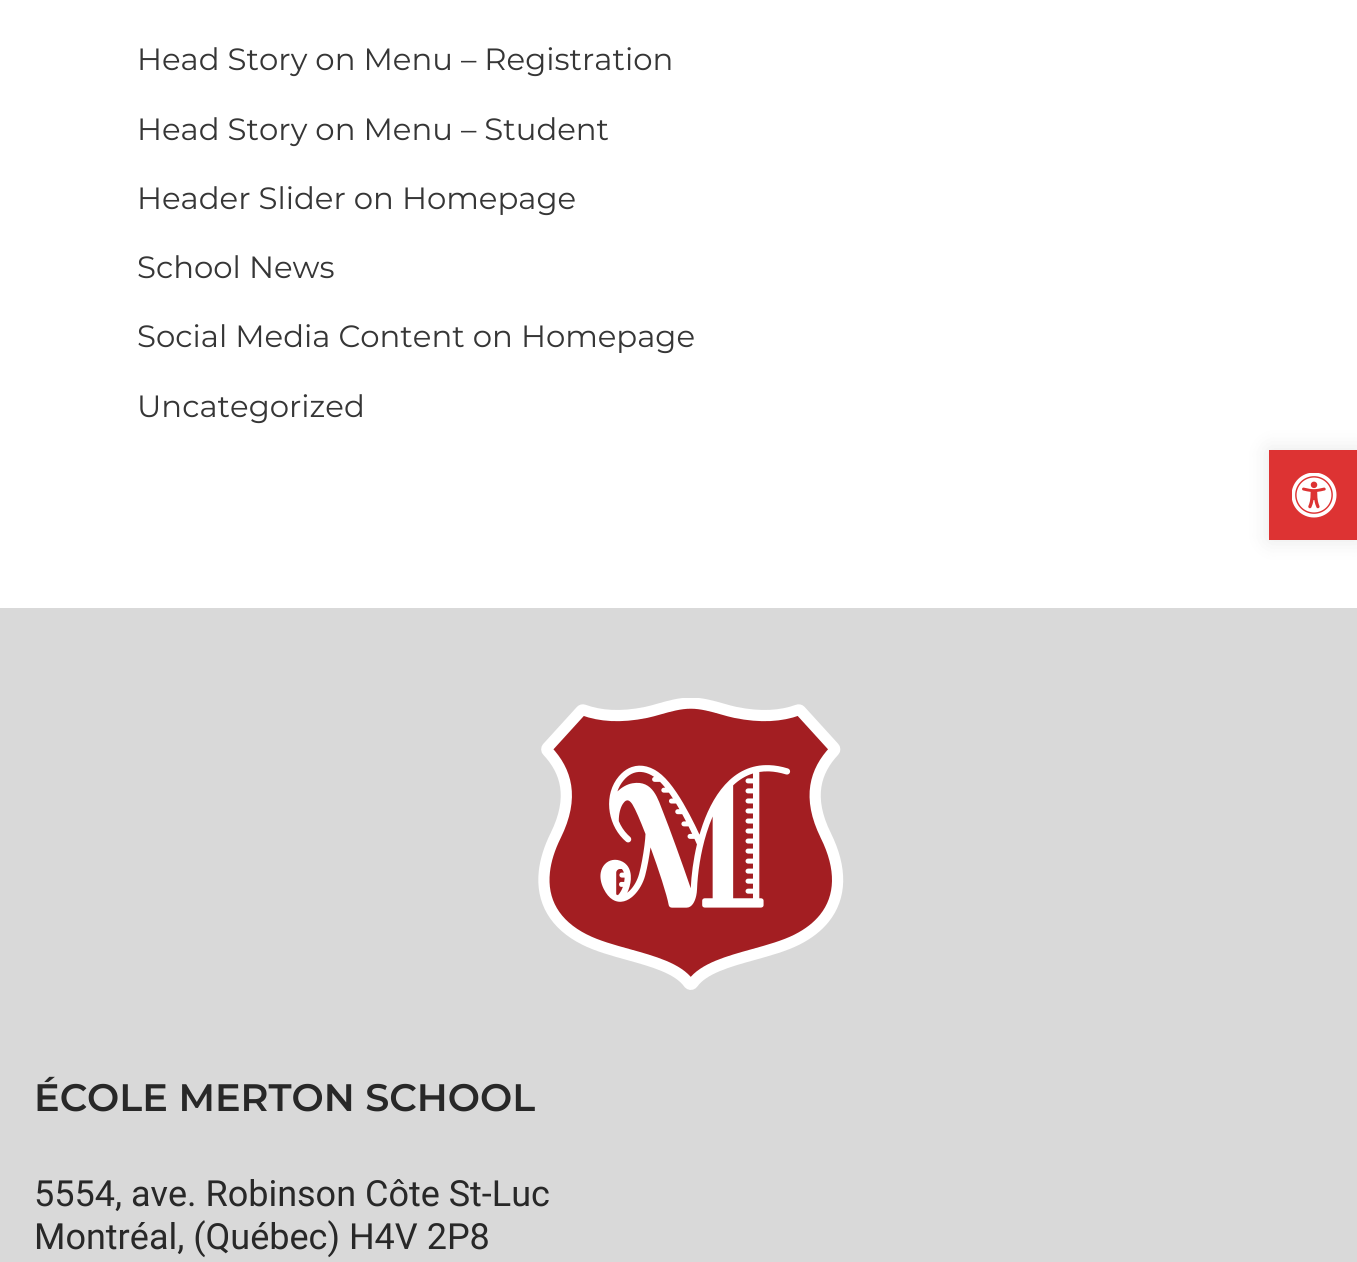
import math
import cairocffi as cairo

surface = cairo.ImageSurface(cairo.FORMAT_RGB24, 1357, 1262)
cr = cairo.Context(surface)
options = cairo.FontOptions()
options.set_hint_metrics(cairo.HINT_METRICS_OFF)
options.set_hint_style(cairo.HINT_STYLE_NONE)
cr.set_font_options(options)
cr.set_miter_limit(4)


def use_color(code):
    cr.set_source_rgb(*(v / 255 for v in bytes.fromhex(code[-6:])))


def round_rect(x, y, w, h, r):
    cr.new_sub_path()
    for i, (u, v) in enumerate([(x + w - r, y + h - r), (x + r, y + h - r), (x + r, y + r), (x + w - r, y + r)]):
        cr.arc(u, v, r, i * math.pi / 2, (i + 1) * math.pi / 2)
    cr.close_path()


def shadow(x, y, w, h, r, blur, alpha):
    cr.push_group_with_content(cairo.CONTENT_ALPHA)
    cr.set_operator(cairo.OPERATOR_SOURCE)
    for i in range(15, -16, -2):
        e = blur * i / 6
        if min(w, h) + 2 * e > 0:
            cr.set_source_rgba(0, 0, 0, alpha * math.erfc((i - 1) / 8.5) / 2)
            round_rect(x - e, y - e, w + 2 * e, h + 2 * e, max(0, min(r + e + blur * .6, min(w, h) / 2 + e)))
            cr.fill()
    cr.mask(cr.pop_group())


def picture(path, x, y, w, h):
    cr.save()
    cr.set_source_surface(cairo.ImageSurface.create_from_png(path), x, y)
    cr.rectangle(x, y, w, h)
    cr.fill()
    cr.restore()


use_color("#ffffff")
cr.paint()
cr.select_font_face("Montserrat")
cr.set_font_size(30.75)
use_color("#363636")
cr.move_to(137, 70)
cr.show_text("Head Story on Menu – Registration")
cr.move_to(137, 140)
cr.show_text("Head Story on Menu – Student")
cr.move_to(137, 209)
cr.show_text("Header Slider on Homepage")
cr.move_to(137, 278)
cr.show_text("School News")
cr.move_to(137, 347)
cr.show_text("Social Media Content on Homepage")
cr.move_to(137, 417)
cr.show_text("Uncategorized")
use_color("#d9d9d9")
cr.rectangle(0, 608, 1357, 654)
cr.fill()
picture("img1.png", 538, 698, 306, 292)
cr.select_font_face("Montserrat SemiBold")
cr.set_font_size(38.25)
use_color("#282828")
cr.move_to(34, 1111)
cr.show_text("ÉCOLE MERTON SCHOOL")
cr.select_font_face("Roboto")
cr.set_font_size(36)
cr.move_to(34, 1206)
cr.show_text("5554, ave. Robinson Côte St-Luc")
cr.move_to(34, 1249)
cr.show_text("Montréal, (Québec) H4V 2P8")
use_color("#000000")
shadow(1269, 450, 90, 90, 0, 11, 0.1)
use_color("#dd3333")
cr.rectangle(1269, 450, 88, 90)
cr.fill()
picture("img2.png", 1292, 473, 45, 45)
surface.write_to_png("result.png")
